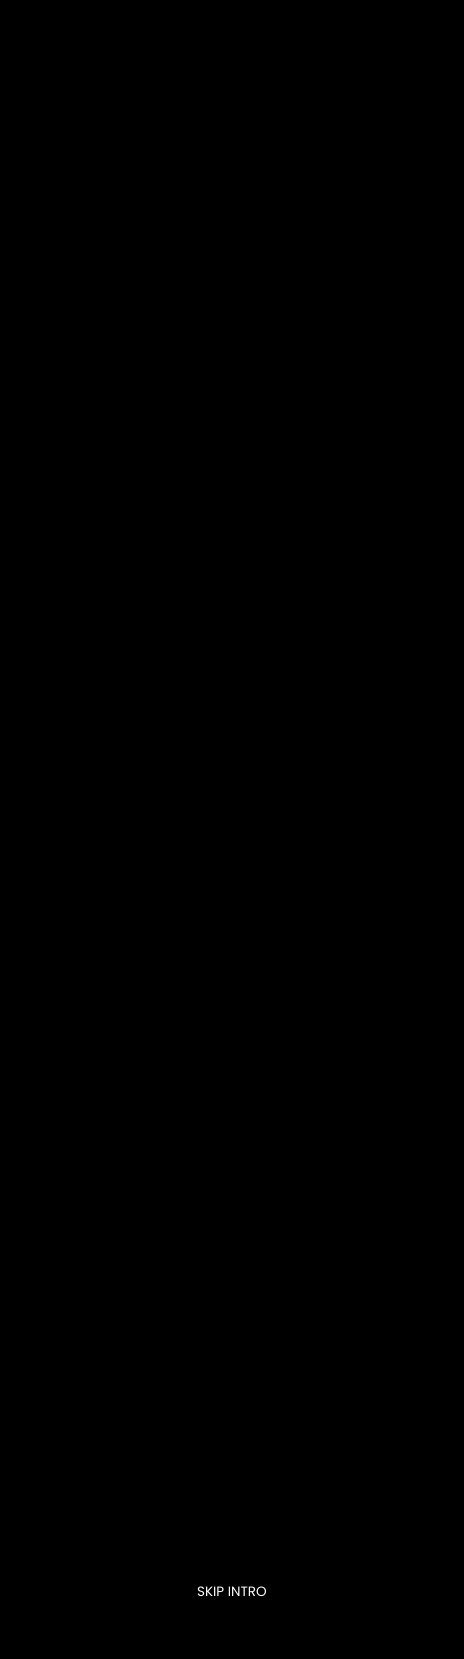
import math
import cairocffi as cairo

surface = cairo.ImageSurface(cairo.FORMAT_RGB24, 464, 1659)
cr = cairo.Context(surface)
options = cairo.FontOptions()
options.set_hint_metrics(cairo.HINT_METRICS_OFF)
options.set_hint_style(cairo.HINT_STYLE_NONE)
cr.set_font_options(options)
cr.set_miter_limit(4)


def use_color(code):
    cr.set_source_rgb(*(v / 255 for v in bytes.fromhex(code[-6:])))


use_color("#000000")
cr.paint()
cr.select_font_face("Poppins")
cr.set_font_size(13.5)
use_color("#ffffff")
cr.move_to(197, 1596)
cr.show_text("SKIP INTRO")
surface.write_to_png("result.png")
